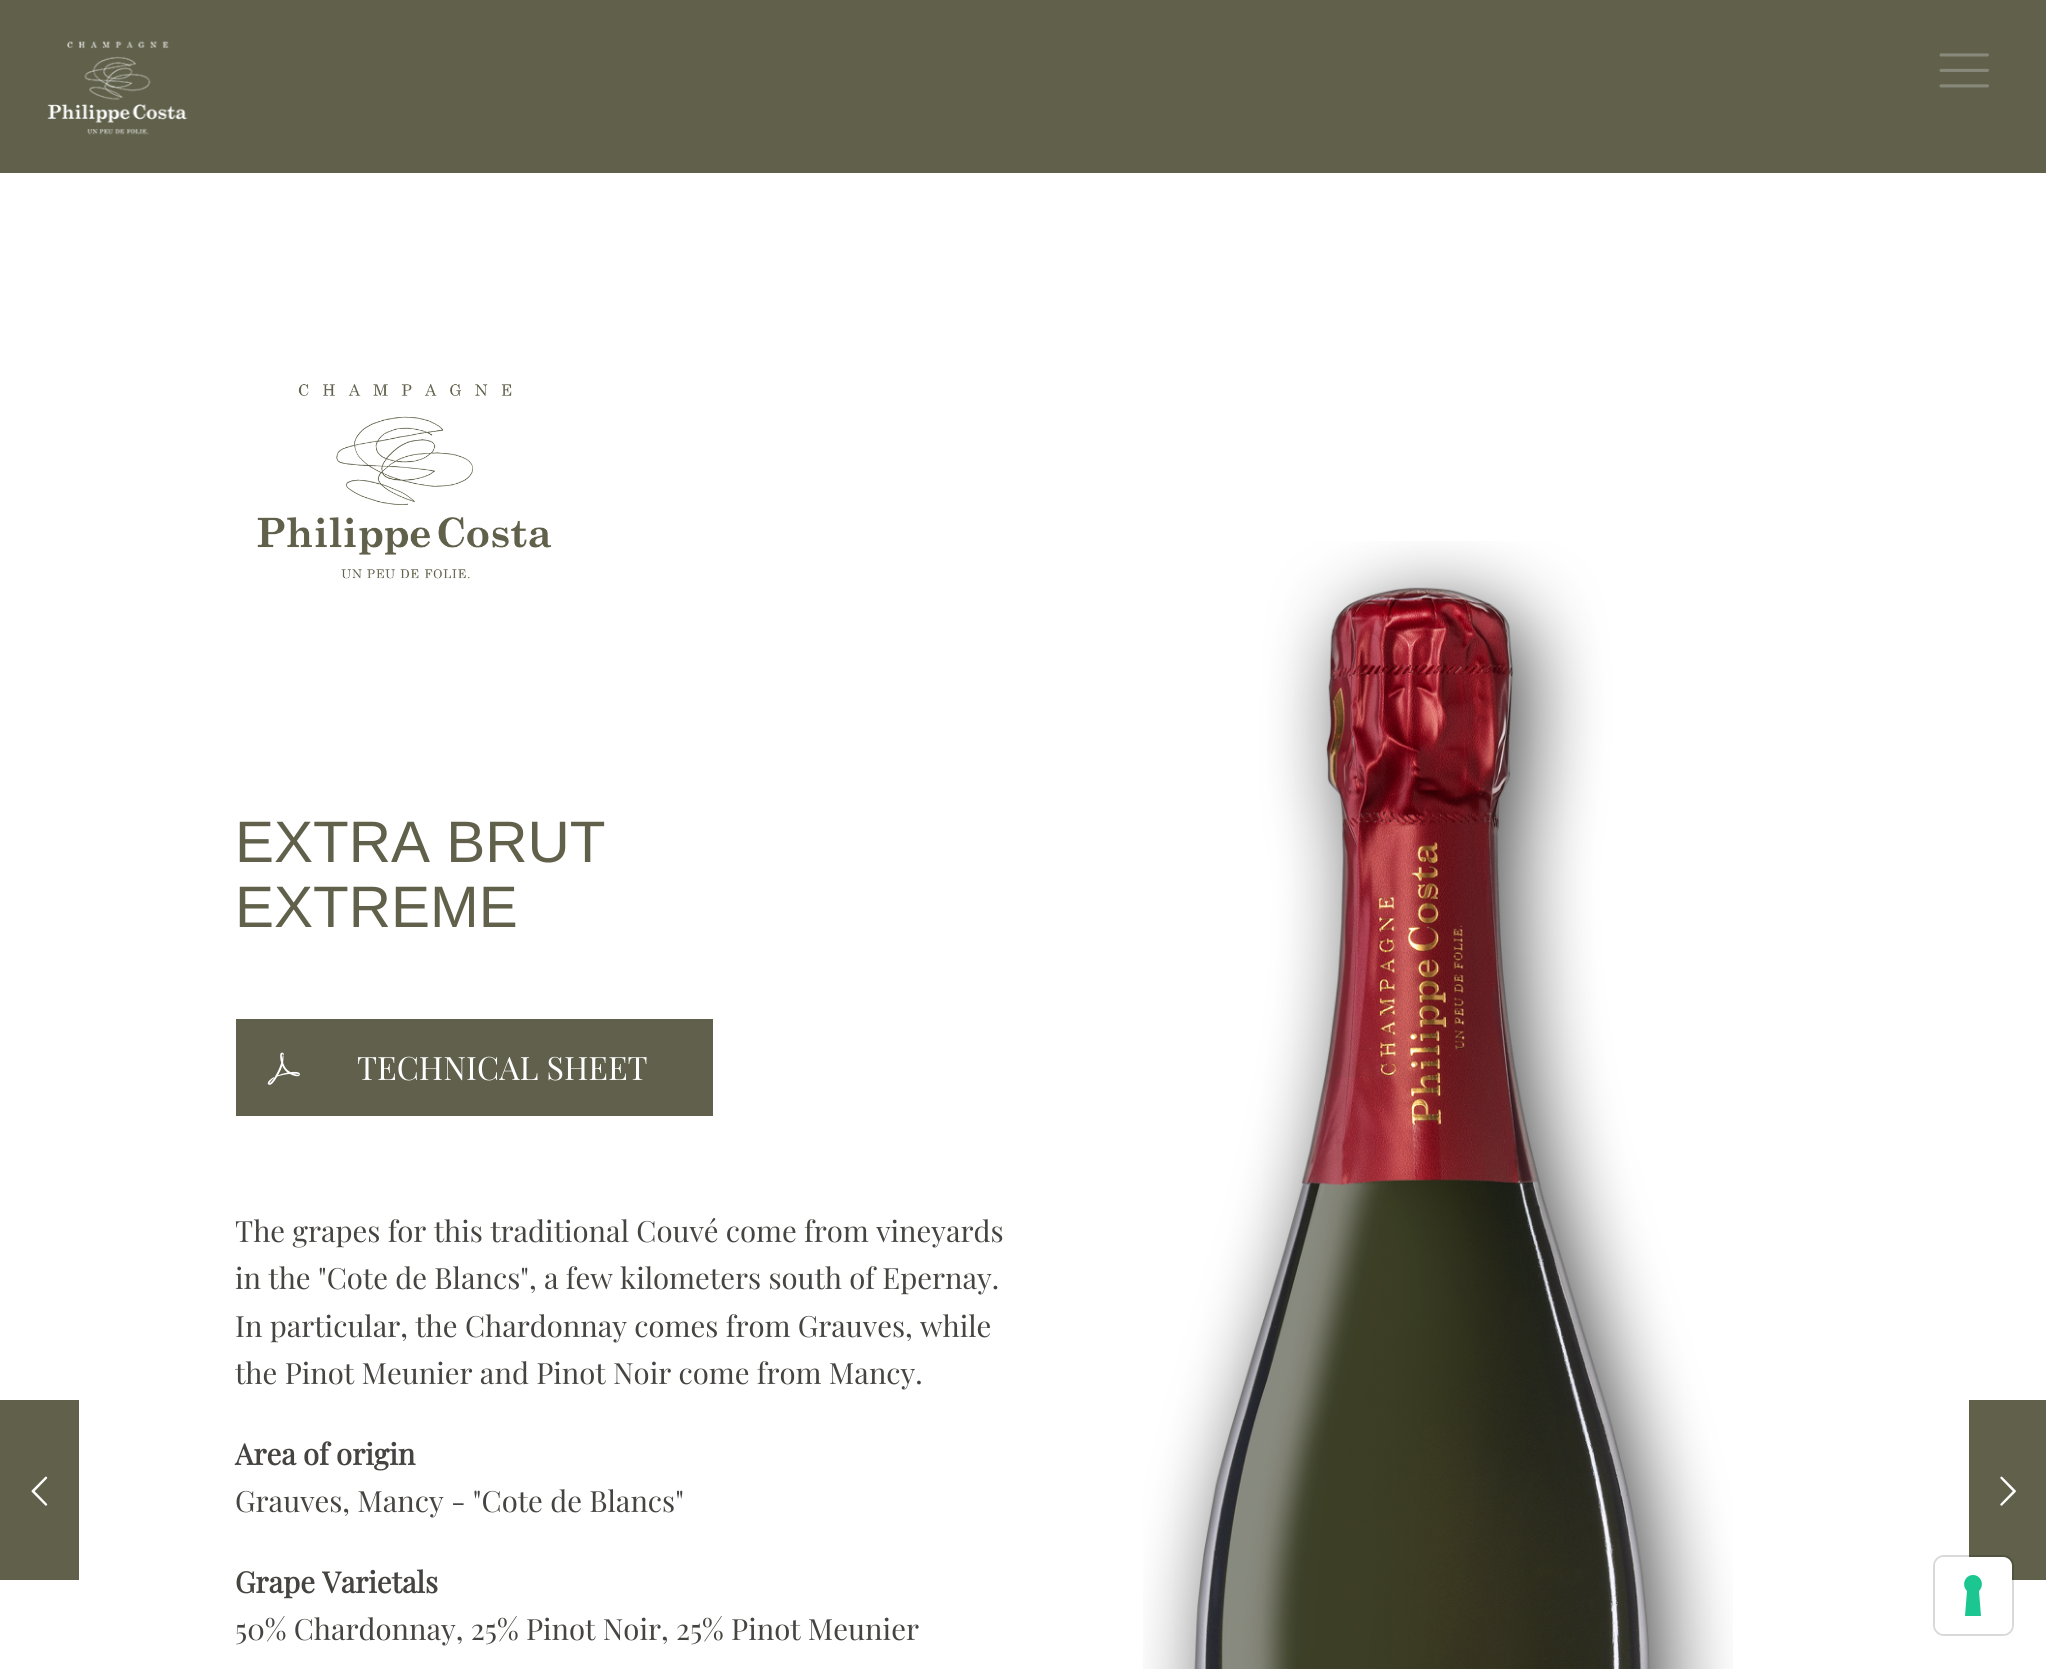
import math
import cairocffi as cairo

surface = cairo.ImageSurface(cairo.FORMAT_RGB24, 2046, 1669)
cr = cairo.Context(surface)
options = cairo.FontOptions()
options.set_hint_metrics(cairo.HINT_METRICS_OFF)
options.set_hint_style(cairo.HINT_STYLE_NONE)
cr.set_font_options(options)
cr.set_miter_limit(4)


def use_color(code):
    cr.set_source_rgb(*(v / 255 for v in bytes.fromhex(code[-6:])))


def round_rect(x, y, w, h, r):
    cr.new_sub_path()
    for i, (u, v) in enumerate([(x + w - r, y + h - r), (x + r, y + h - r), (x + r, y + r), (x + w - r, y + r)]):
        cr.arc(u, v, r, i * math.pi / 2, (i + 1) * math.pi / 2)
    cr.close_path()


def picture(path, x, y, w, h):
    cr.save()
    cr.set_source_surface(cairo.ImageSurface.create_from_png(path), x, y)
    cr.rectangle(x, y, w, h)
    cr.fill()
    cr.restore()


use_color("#ffffff")
cr.paint()
use_color("#60604b")
cr.rectangle(0, 0, 2046, 173)
cr.fill()
picture("img1.png", 47, 41, 141, 94)
picture("img2.png", 1939, 53, 50, 35)
cr.rectangle(0, 1400, 79, 180)
cr.fill()
picture("img3.png", 31, 1476, 17, 30)
picture("img4.png", 257, 384, 295, 195)
cr.select_font_face("Liberation Sans")
cr.set_font_size(58.5)
cr.move_to(235, 862)
cr.show_text("EXTRA BRUT")
cr.move_to(235, 927)
cr.show_text("EXTREME")
use_color("#60604d")
cr.rectangle(236, 1019, 477, 97)
cr.fill()
picture("img5.png", 267, 1052, 33, 33)
cr.select_font_face("Playfair Display")
cr.set_font_size(32.25)
use_color("#ffffff")
cr.move_to(357, 1080)
cr.show_text("TECHNICAL SHEET")
cr.set_font_size(29.25)
use_color("#454441")
cr.move_to(235, 1242)
cr.show_text("The grapes for this traditional Couvé come from vineyards")
cr.move_to(235, 1289)
cr.show_text("in the \"Cote de Blancs\", a few kilometers south of Epernay.")
cr.move_to(235, 1337)
cr.show_text("In particular, the Chardonnay comes from Grauves, while")
cr.move_to(235, 1384)
cr.show_text("the Pinot Meunier and Pinot Noir come from Mancy.")
cr.select_font_face("Playfair Display", cairo.FONT_SLANT_NORMAL, cairo.FONT_WEIGHT_BOLD)
cr.move_to(235, 1465)
cr.show_text("Area of origin")
cr.select_font_face("Playfair Display")
cr.move_to(235, 1512)
cr.show_text("Grauves, Mancy - \"Cote de Blancs\"")
cr.select_font_face("Playfair Display", cairo.FONT_SLANT_NORMAL, cairo.FONT_WEIGHT_BOLD)
cr.move_to(235, 1593)
cr.show_text("Grape Varietals")
cr.select_font_face("Playfair Display")
cr.move_to(235, 1640)
cr.show_text("50% Chardonnay, 25% Pinot Noir, 25% Pinot Meunier")
picture("img6.png", 1143, 541, 590, 1128)
use_color("#60604b")
cr.rectangle(1969, 1400, 77, 180)
cr.fill()
picture("img7.png", 2000, 1476, 16, 30)
round_rect(1934, 1556, 79, 79, 10)
cr.set_source_rgba(0, 0, 0, 0.15)
cr.stroke()
use_color("#ffffff")
round_rect(1935, 1557, 77, 77, 9)
cr.fill()
use_color("#1cc691")
cr.set_fill_rule(cairo.FILL_RULE_EVEN_ODD)
cr.new_path()
cr.move_to(1973, 1575)
cr.curve_to(1981, 1575, 1985, 1585, 1979, 1591)
cr.line_to(1981, 1616)
cr.line_to(1965, 1616)
cr.line_to(1967, 1591)
cr.curve_to(1961, 1585, 1965, 1575, 1973, 1575)
cr.close_path()
cr.fill()
surface.write_to_png("result.png")
